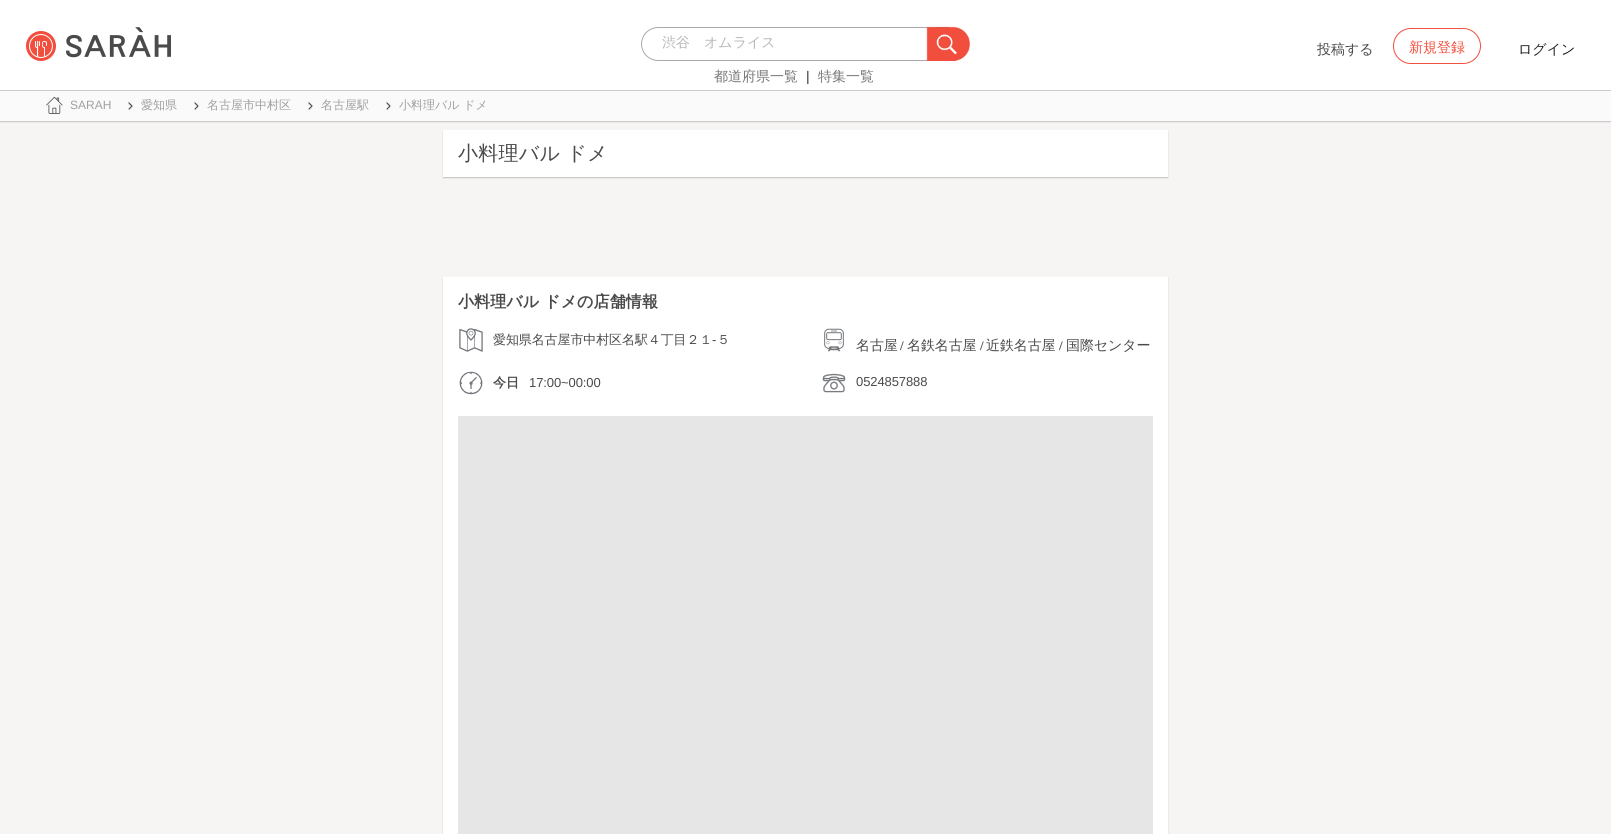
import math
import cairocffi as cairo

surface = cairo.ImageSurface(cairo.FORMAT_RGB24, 1611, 834)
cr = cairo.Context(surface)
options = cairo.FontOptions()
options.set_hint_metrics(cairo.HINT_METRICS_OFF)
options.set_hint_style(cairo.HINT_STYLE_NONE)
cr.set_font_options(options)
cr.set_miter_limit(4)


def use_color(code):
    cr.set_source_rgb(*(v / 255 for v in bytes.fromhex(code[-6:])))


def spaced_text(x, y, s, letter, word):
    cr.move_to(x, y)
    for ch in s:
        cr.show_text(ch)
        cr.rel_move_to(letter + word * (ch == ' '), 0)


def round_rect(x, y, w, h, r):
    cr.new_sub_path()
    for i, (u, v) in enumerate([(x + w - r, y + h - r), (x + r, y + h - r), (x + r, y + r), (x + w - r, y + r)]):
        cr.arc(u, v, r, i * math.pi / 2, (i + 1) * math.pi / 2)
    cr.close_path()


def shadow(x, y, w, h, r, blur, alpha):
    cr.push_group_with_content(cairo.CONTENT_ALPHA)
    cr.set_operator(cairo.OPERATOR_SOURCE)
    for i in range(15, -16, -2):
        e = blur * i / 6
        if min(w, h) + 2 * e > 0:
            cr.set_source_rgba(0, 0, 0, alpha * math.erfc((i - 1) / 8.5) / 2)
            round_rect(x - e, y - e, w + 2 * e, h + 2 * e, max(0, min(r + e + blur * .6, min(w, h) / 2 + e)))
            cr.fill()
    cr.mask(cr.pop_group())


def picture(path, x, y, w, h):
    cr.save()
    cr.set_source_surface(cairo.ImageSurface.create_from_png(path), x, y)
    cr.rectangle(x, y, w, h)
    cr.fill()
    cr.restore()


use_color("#f7f4f4")
cr.paint()
use_color("#000000")
shadow(0, 92, 1611, 30, 0, 0.5, 0.2)
use_color("#ffffff")
cr.rectangle(0, 0, 1611, 90)
cr.fill()
use_color("#cdcaca")
cr.rectangle(0, 90, 1611, 1)
cr.fill()
picture("img1.png", 26, 27, 145, 34)
cr.new_path()
cr.move_to(658, 27.5)
cr.line_to(937.5, 27.5)
cr.line_to(937.5, 60.5)
cr.line_to(658, 60.5)
cr.curve_to(649, 60.5, 641.5, 53, 641.5, 44)
cr.curve_to(641.5, 35, 649, 27.5, 658, 27.5)
cr.close_path()
use_color("#aaaaaa")
cr.set_line_width(1)
cr.stroke()
cr.select_font_face("WenQuanYi Zen Hei Medium")
cr.set_font_size(14)
use_color("#b7b7b7")
cr.move_to(662, 47)
cr.show_text("渋谷　オムライス")
round_rect(935.5, 27.5, 14, 33, 1.5)
use_color("#767676")
cr.stroke()
picture("img2.png", 926, 26, 44, 35)
use_color("#777777")
cr.move_to(714, 81)
cr.show_text("都道府県一覧")
cr.select_font_face("Liberation Sans")
use_color("#333333")
cr.move_to(806, 81)
cr.show_text("|")
cr.select_font_face("WenQuanYi Zen Hei Medium")
use_color("#777777")
cr.move_to(818, 81)
cr.show_text("特集一覧")
use_color("#4a4a4a")
cr.move_to(1317, 54)
cr.show_text("投稿する")
round_rect(1393.5, 28.5, 87, 35, 17.5)
use_color("#f24e3d")
cr.stroke()
cr.move_to(1409, 52)
cr.show_text("新規登録")
use_color("#212121")
cr.move_to(1518, 54)
cr.show_text("ログイン")
use_color("#fafafa")
cr.rectangle(0, 91, 1611, 30)
cr.fill()
picture("img3.png", 46, 96, 17, 18)
cr.select_font_face("Liberation Sans")
cr.set_font_size(12)
use_color("#a0a0a0")
cr.move_to(70, 109)
cr.show_text("SARAH")
picture("img4.png", 128, 102, 5, 9)
cr.select_font_face("WenQuanYi Zen Hei Medium")
cr.move_to(141, 109)
cr.show_text("愛知県")
picture("img4.png", 194, 102, 5, 9)
cr.move_to(207, 109)
cr.show_text("名古屋市中村区")
picture("img4.png", 308, 102, 5, 9)
cr.move_to(321, 109)
cr.show_text("名古屋駅")
picture("img4.png", 386, 102, 5, 9)
cr.move_to(399, 109)
cr.show_text("小料理バル ドメ")
use_color("#000000")
shadow(443, 131, 725, 47, 0, 0.5, 0.2)
use_color("#ffffff")
cr.rectangle(443, 130, 725, 47)
cr.fill()
cr.set_font_size(20)
use_color("#4a4a4a")
spaced_text(458, 160, "小料理バル ドメ", 0.25, 0)
use_color("#000000")
shadow(443, 278, 725, 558, 0, 0.5, 0.2)
use_color("#ffffff")
cr.rectangle(443, 277, 725, 557)
cr.fill()
cr.select_font_face("WenQuanYi Zen Hei", cairo.FONT_SLANT_NORMAL, cairo.FONT_WEIGHT_BOLD)
cr.set_font_size(16)
use_color("#4a4a4a")
spaced_text(458, 307, "小料理バル ドメの店舗情報", 0.1, 0)
picture("img5.png", 459, 328, 24, 24)
cr.select_font_face("WenQuanYi Zen Hei Medium")
cr.set_font_size(13)
spaced_text(493, 344, "愛知県名古屋市中村区名駅４丁目２１", -0.1, 0)
cr.select_font_face("Liberation Sans")
spaced_text(712, 344, "-", -0.1, 0)
cr.select_font_face("WenQuanYi Zen Hei Medium")
spaced_text(717, 344, "５", -0.1, 0)
picture("img6.png", 824, 328, 20, 24)
cr.set_font_size(14)
spaced_text(856, 350, "名古屋", -0.1, 0)
cr.select_font_face("Liberation Serif", cairo.FONT_SLANT_NORMAL, cairo.FONT_WEIGHT_BOLD)
cr.set_font_size(13)
spaced_text(900, 350, "/", -0.1, 0)
cr.select_font_face("WenQuanYi Zen Hei Medium")
cr.set_font_size(14)
spaced_text(907, 350, "名鉄名古屋", -0.1, 0)
cr.select_font_face("Liberation Serif", cairo.FONT_SLANT_NORMAL, cairo.FONT_WEIGHT_BOLD)
cr.set_font_size(13)
spaced_text(980, 350, "/", -0.1, 0)
cr.select_font_face("WenQuanYi Zen Hei Medium")
cr.set_font_size(14)
spaced_text(986, 350, "近鉄名古屋", -0.1, 0)
cr.select_font_face("Liberation Serif", cairo.FONT_SLANT_NORMAL, cairo.FONT_WEIGHT_BOLD)
cr.set_font_size(13)
spaced_text(1059, 350, "/", -0.1, 0)
cr.select_font_face("WenQuanYi Zen Hei Medium")
cr.set_font_size(14)
spaced_text(1066, 350, "国際センター", -0.1, 0)
picture("img7.png", 459, 371, 24, 24)
cr.select_font_face("WenQuanYi Zen Hei", cairo.FONT_SLANT_NORMAL, cairo.FONT_WEIGHT_BOLD)
cr.set_font_size(13)
spaced_text(493, 387, "今日", -0.1, 0)
cr.select_font_face("Liberation Sans")
spaced_text(529, 387, "17:00~00:00", -0.1, 0)
picture("img8.png", 822, 373, 24, 20)
spaced_text(856, 386, "0524857888", -0.1, 0)
use_color("#e6e6e6")
cr.rectangle(458, 416, 695, 418)
cr.fill()
surface.write_to_png("result.png")
